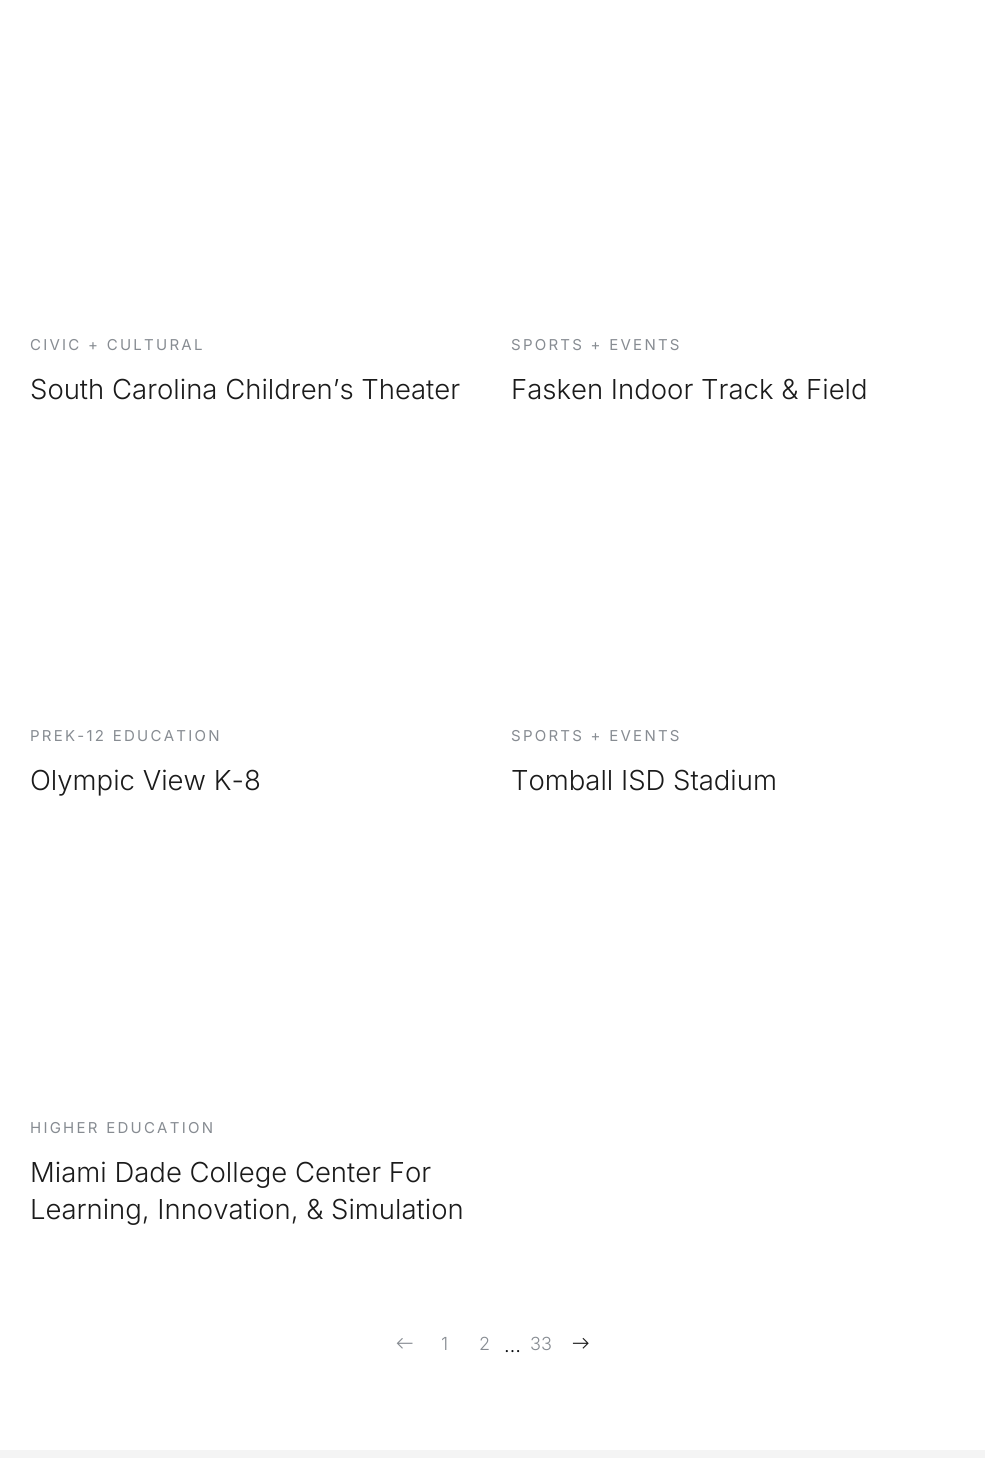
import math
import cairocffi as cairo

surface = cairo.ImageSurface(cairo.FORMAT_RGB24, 985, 1458)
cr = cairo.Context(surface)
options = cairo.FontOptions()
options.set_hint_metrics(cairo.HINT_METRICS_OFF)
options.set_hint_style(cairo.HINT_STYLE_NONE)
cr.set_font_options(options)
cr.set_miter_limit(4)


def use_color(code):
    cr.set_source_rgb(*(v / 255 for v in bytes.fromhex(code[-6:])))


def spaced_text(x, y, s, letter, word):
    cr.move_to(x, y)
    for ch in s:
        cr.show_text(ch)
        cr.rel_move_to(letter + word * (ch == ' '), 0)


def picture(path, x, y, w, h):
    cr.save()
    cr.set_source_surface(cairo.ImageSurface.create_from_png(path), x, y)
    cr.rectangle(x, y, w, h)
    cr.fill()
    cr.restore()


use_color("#ffffff")
cr.paint()
cr.select_font_face("Inter")
cr.set_font_size(15)
use_color("#878c92")
spaced_text(30, 350, "CIVIC + CULTURAL", 2.25, 0)
cr.select_font_face("Inter Light")
cr.set_font_size(27.5)
use_color("#1b1b1b")
cr.move_to(30, 399)
cr.show_text("South Carolina Children’s Theater")
cr.select_font_face("Inter")
cr.set_font_size(15)
use_color("#878c92")
spaced_text(511, 350, "SPORTS + EVENTS", 2.25, 0)
cr.select_font_face("Inter Light")
cr.set_font_size(27.5)
use_color("#1b1b1b")
cr.move_to(511, 399)
cr.show_text("Fasken Indoor Track & Field")
cr.select_font_face("Inter")
cr.set_font_size(15)
use_color("#878c92")
spaced_text(30, 741, "PREK-12 EDUCATION", 2.25, 0)
cr.select_font_face("Inter Light")
cr.set_font_size(27.5)
use_color("#1b1b1b")
cr.move_to(30, 790)
cr.show_text("Olympic View K-8")
cr.select_font_face("Inter")
cr.set_font_size(15)
use_color("#878c92")
spaced_text(511, 741, "SPORTS + EVENTS", 2.25, 0)
cr.select_font_face("Inter Light")
cr.set_font_size(27.5)
use_color("#1b1b1b")
cr.move_to(511, 790)
cr.show_text("Tomball ISD Stadium")
cr.select_font_face("Inter")
cr.set_font_size(15)
use_color("#878c92")
spaced_text(30, 1133, "HIGHER EDUCATION", 2.25, 0)
cr.select_font_face("Inter Light")
cr.set_font_size(27.5)
use_color("#1b1b1b")
cr.move_to(30, 1182)
cr.show_text("Miami Dade College Center For")
cr.move_to(30, 1219)
cr.show_text("Learning, Innovation, & Simulation")
picture("img1.png", 396, 1338, 17, 11)
cr.set_font_size(18)
use_color("#878c92")
cr.move_to(441, 1350)
cr.show_text("1")
cr.move_to(479, 1350)
cr.show_text("2")
cr.move_to(530, 1350)
cr.show_text("33")
picture("img2.png", 572, 1337, 17, 12)
cr.set_font_size(20)
use_color("#080b0f")
cr.move_to(504, 1352)
cr.show_text("…")
use_color("#f4f4f4")
cr.rectangle(0, 1450, 985, 8)
cr.fill()
surface.write_to_png("result.png")
